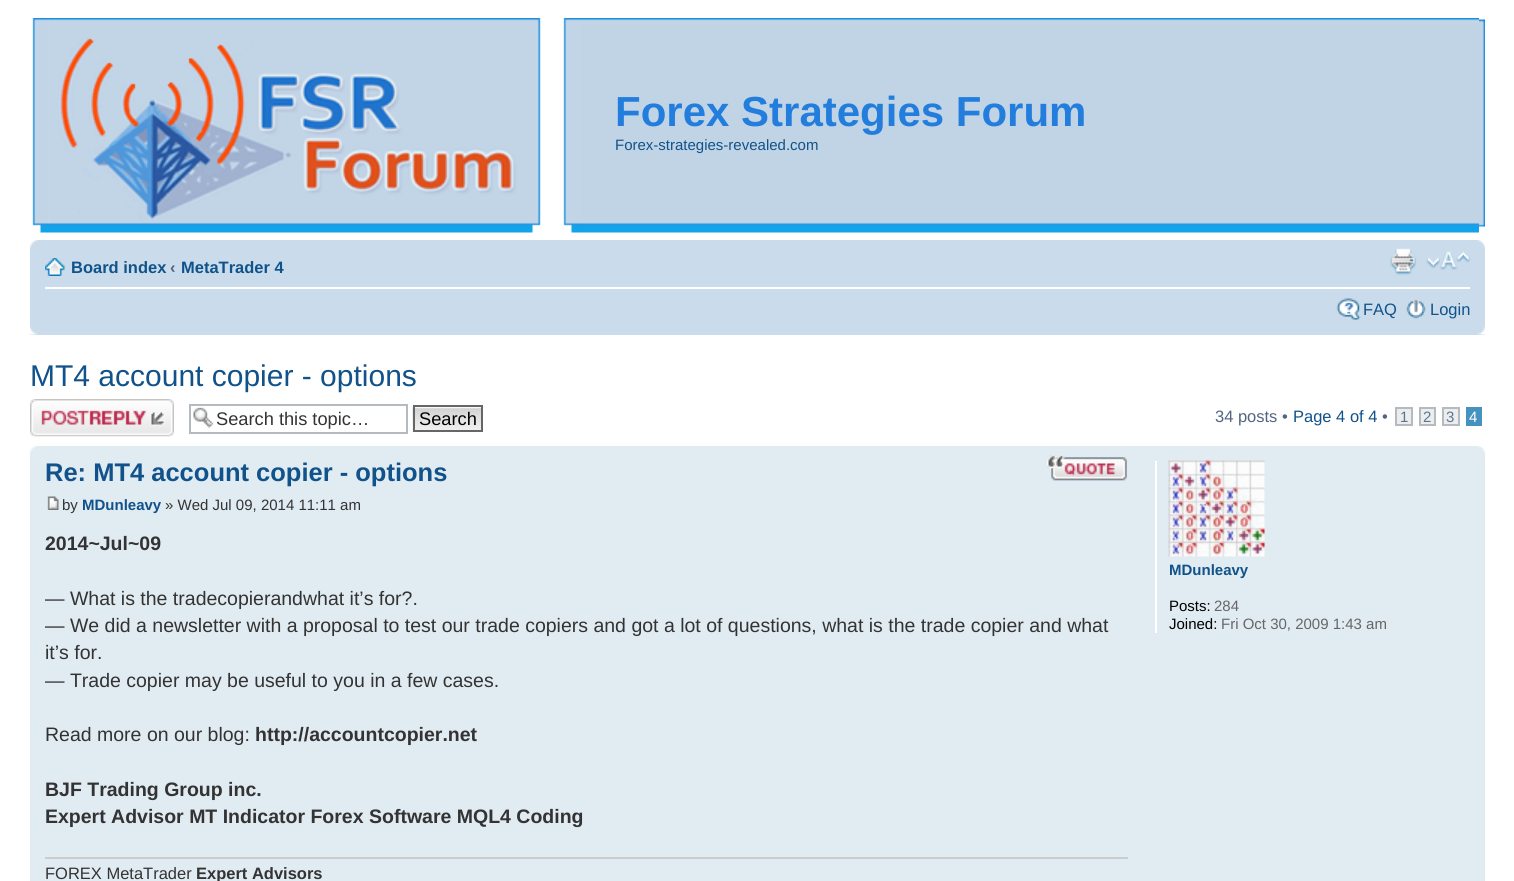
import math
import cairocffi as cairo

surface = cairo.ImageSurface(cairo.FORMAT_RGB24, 1514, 881)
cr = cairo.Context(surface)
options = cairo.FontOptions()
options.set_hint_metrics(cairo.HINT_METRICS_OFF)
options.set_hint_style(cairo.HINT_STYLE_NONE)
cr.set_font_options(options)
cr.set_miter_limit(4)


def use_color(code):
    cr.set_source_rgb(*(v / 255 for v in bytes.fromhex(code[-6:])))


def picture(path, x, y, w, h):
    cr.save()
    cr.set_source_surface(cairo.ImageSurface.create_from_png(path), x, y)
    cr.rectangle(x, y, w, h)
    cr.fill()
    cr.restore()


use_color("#ffffff")
cr.paint()
picture("img1.png", 32, 18, 550, 215)
picture("img2.png", 582, 18, 897, 215)
cr.select_font_face("Liberation Sans", cairo.FONT_SLANT_NORMAL, cairo.FONT_WEIGHT_BOLD)
cr.set_font_size(42)
use_color("#227ddd")
cr.move_to(615, 126)
cr.show_text("Forex Strategies Forum")
cr.select_font_face("Liberation Sans")
cr.set_font_size(15)
use_color("#105289")
cr.move_to(615, 150)
cr.show_text("Forex-strategies-revealed.com")
picture("img3.png", 1479, 19, 6, 208)
use_color("#cadceb")
cr.rectangle(30, 240, 1455, 95)
cr.fill()
picture("img4.png", 30, 240, 8, 8)
picture("img5.png", 1477, 240, 8, 8)
use_color("#ffffff")
cr.rectangle(45, 287, 1425, 2)
cr.fill()
picture("img6.png", 45, 258, 20, 18)
cr.select_font_face("Liberation Sans", cairo.FONT_SLANT_NORMAL, cairo.FONT_WEIGHT_BOLD)
cr.set_font_size(16.5)
use_color("#105289")
cr.move_to(71, 273)
cr.show_text("Board index")
use_color("#536482")
cr.move_to(170, 273)
cr.show_text("‹")
use_color("#105289")
cr.move_to(181, 273)
cr.show_text("MetaTrader 4")
picture("img7.png", 1390, 248, 27, 27)
picture("img8.png", 1426, 251, 44, 20)
picture("img9.png", 1336, 298, 25, 22)
cr.select_font_face("Liberation Sans")
cr.move_to(1363, 315)
cr.show_text("FAQ")
picture("img10.png", 1406, 299, 20, 20)
cr.move_to(1430, 315)
cr.show_text("Login")
picture("img11.png", 30, 327, 8, 8)
picture("img12.png", 1477, 327, 8, 8)
cr.set_font_size(30)
cr.move_to(30, 386)
cr.show_text("MT4 account copier - options")
picture("img13.png", 30, 399, 144, 38)
picture("img14.png", 193, 407, 21, 21)
cr.rectangle(190, 405, 217, 28)
use_color("#b4bac0")
cr.stroke()
cr.set_font_size(18.25)
use_color("#333333")
cr.move_to(216, 425)
cr.show_text("Search this topic…")
picture("img15.png", 412, 407, 69, 25)
cr.rectangle(414, 406, 68, 25)
use_color("#666666")
cr.stroke()
use_color("#000000")
cr.move_to(419, 425)
cr.show_text("Search")
cr.set_font_size(16.5)
use_color("#536482")
cr.move_to(1215, 422)
cr.show_text("34 posts •")
use_color("#105289")
cr.move_to(1293, 422)
cr.show_text("Page 4 of 4")
use_color("#536482")
cr.move_to(1382, 422)
cr.show_text("•")
use_color("#ecedee")
cr.rectangle(1396, 408, 16, 17)
cr.fill_preserve()
use_color("#b4bac0")
cr.stroke()
cr.set_font_size(15)
use_color("#5c758c")
cr.move_to(1400, 422)
cr.show_text("1")
use_color("#ecedee")
cr.rectangle(1420, 408, 15, 17)
cr.fill_preserve()
use_color("#b4bac0")
cr.stroke()
use_color("#5c758c")
cr.move_to(1423, 422)
cr.show_text("2")
use_color("#ecedee")
cr.rectangle(1443, 408, 16, 17)
cr.fill_preserve()
use_color("#b4bac0")
cr.stroke()
use_color("#5c758c")
cr.move_to(1446, 422)
cr.show_text("3")
use_color("#4692bf")
cr.rectangle(1466, 407, 16, 19)
cr.fill()
use_color("#ffffff")
cr.move_to(1469, 422)
cr.show_text("4")
use_color("#e1ebf2")
cr.rectangle(30, 446, 1455, 435)
cr.fill()
picture("img16.png", 30, 446, 7, 7)
picture("img17.png", 1478, 446, 7, 7)
cr.select_font_face("Liberation Sans", cairo.FONT_SLANT_NORMAL, cairo.FONT_WEIGHT_BOLD)
cr.set_font_size(25.5)
use_color("#105289")
cr.move_to(45, 481)
cr.show_text("Re: MT4 account copier - options")
picture("img18.png", 1047, 454, 80, 27)
picture("img19.png", 1047, 454, 80, 27)
picture("img20.png", 47, 496, 12, 14)
cr.select_font_face("Liberation Sans")
cr.set_font_size(15)
use_color("#333333")
cr.move_to(62, 510)
cr.show_text("by")
cr.select_font_face("Liberation Sans", cairo.FONT_SLANT_NORMAL, cairo.FONT_WEIGHT_BOLD)
use_color("#105289")
cr.move_to(82, 510)
cr.show_text("MDunleavy")
cr.select_font_face("Liberation Sans")
use_color("#333333")
cr.move_to(165, 510)
cr.show_text("» Wed Jul 09, 2014 11:11 am")
cr.select_font_face("Liberation Sans", cairo.FONT_SLANT_NORMAL, cairo.FONT_WEIGHT_BOLD)
cr.set_font_size(19.5)
cr.move_to(45, 550)
cr.show_text("2014~Jul~09")
cr.select_font_face("Liberation Sans")
cr.move_to(45, 605)
cr.show_text("— What is the tradecopierandwhat it’s for?.")
cr.move_to(45, 632)
cr.show_text("— We did a newsletter with a proposal to test our trade copiers and got a lot of questions, what is the trade copier and what")
cr.move_to(45, 659)
cr.show_text("it’s for.")
cr.move_to(45, 687)
cr.show_text("— Trade copier may be useful to you in a few cases.")
cr.move_to(45, 741)
cr.show_text("Read more on our blog:")
cr.select_font_face("Liberation Sans", cairo.FONT_SLANT_NORMAL, cairo.FONT_WEIGHT_BOLD)
cr.move_to(255, 741)
cr.show_text("http://accountcopier.net")
cr.move_to(45, 796)
cr.show_text("BJF Trading Group inc.")
cr.move_to(45, 823)
cr.show_text("Expert Advisor MT Indicator Forex Software MQL4 Coding")
use_color("#cccccc")
cr.rectangle(45, 857, 1083, 2)
cr.fill()
cr.select_font_face("Liberation Sans")
cr.set_font_size(16.5)
use_color("#333333")
cr.move_to(45, 879)
cr.show_text("FOREX MetaTrader")
cr.select_font_face("Liberation Sans", cairo.FONT_SLANT_NORMAL, cairo.FONT_WEIGHT_BOLD)
cr.move_to(196, 879)
cr.show_text("Expert Advisors")
use_color("#ffffff")
cr.rectangle(1155, 461, 2, 172)
cr.fill()
picture("img21.png", 1168, 460, 97, 97)
cr.set_font_size(15)
use_color("#105289")
cr.move_to(1169, 575)
cr.show_text("MDunleavy")
cr.select_font_face("Liberation Sans")
use_color("#000000")
cr.move_to(1169, 611)
cr.show_text("Posts:")
use_color("#666666")
cr.move_to(1214, 611)
cr.show_text("284")
use_color("#000000")
cr.move_to(1169, 629)
cr.show_text("Joined:")
use_color("#666666")
cr.move_to(1221, 629)
cr.show_text("Fri Oct 30, 2009 1:43 am")
surface.write_to_png("result.png")
